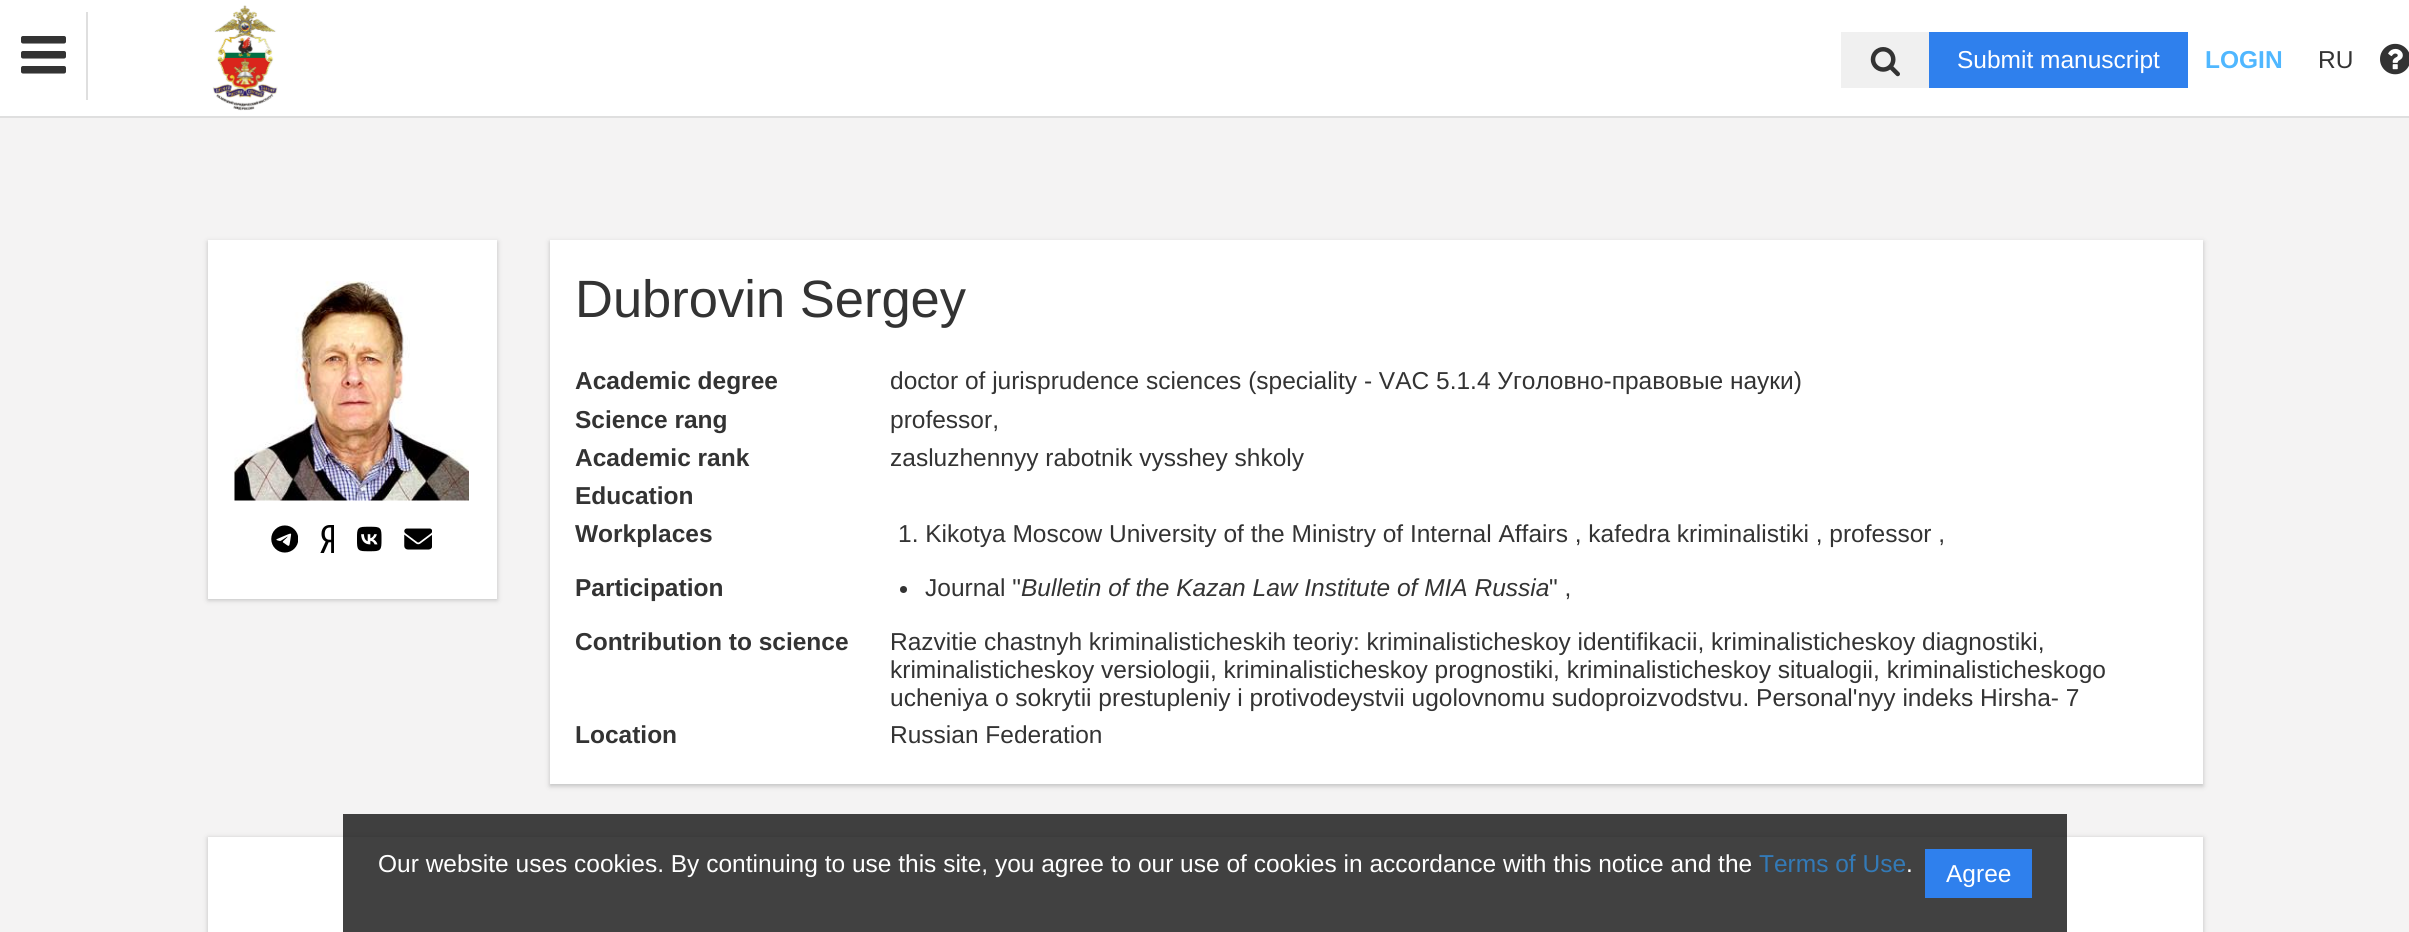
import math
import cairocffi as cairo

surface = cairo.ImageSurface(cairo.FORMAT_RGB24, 2409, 932)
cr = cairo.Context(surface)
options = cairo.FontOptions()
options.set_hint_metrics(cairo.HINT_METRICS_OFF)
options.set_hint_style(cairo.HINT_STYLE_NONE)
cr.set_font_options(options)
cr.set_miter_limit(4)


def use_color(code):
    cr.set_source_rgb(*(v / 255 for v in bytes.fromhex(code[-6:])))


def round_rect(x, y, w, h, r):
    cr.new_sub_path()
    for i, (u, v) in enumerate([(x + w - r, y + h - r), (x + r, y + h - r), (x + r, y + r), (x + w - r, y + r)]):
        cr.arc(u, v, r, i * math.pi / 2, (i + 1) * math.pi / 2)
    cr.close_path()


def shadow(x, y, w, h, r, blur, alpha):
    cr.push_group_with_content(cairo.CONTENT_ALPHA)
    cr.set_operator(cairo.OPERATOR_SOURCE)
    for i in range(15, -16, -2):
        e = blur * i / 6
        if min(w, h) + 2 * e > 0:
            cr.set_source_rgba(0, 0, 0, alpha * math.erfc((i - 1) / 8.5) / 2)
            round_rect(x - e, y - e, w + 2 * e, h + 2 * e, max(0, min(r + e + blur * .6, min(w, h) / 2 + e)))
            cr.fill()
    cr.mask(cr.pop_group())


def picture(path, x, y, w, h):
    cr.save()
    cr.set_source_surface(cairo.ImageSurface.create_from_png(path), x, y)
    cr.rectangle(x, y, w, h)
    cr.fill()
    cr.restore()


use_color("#f4f3f3")
cr.paint()
use_color("#ffffff")
cr.rectangle(0, 0, 2409, 116)
cr.fill()
use_color("#dfdfdf")
cr.rectangle(0, 116, 2409, 2)
cr.fill()
cr.rectangle(86, 12, 2, 88)
cr.fill()
picture("img1.png", 21, 36, 45, 38)
picture("img2.png", 212, 5, 66, 106)
use_color("#f0f0f0")
cr.rectangle(1841, 32, 88, 56)
cr.fill()
picture("img3.png", 1870, 47, 30, 30)
use_color("#2f80ed")
cr.rectangle(1929, 32, 259, 56)
cr.fill()
cr.select_font_face("Liberation Sans")
cr.set_font_size(24.5)
use_color("#ffffff")
cr.move_to(1957, 68)
cr.show_text("Submit manuscript")
cr.select_font_face("Liberation Sans", cairo.FONT_SLANT_NORMAL, cairo.FONT_WEIGHT_BOLD)
use_color("#50b7ff")
cr.move_to(2205, 68)
cr.show_text("LOGIN")
cr.select_font_face("Liberation Sans")
use_color("#333333")
cr.move_to(2318, 68)
cr.show_text("RU")
picture("img4.png", 2380, 43, 29, 32)
use_color("#bfbfbf")
shadow(208, 242, 289, 358, 0, 2.5, 1)
use_color("#ffffff")
cr.rectangle(208, 240, 289, 359)
cr.fill()
picture("img5.png", 234, 281, 235, 220)
picture("img6.png", 271, 525, 27, 28)
picture("img7.png", 320, 525, 14, 28)
picture("img8.png", 357, 526, 25, 26)
picture("img9.png", 404, 528, 28, 22)
use_color("#bfbfbf")
shadow(550, 242, 1653, 544, 0, 2.5, 1)
use_color("#ffffff")
cr.rectangle(550, 240, 1653, 544)
cr.fill()
cr.set_font_size(52.5)
use_color("#333333")
cr.move_to(575, 317)
cr.show_text("Dubrovin Sergey")
cr.select_font_face("Liberation Sans", cairo.FONT_SLANT_NORMAL, cairo.FONT_WEIGHT_BOLD)
cr.set_font_size(24.5)
cr.move_to(575, 389)
cr.show_text("Academic degree")
cr.select_font_face("Liberation Sans")
cr.move_to(890, 389)
cr.show_text("doctor of jurisprudence sciences (speciality - VAC 5.1.4 Уголовно-правовые науки)")
cr.select_font_face("Liberation Sans", cairo.FONT_SLANT_NORMAL, cairo.FONT_WEIGHT_BOLD)
cr.move_to(575, 428)
cr.show_text("Science rang")
cr.select_font_face("Liberation Sans")
cr.move_to(890, 428)
cr.show_text("professor,")
cr.select_font_face("Liberation Sans", cairo.FONT_SLANT_NORMAL, cairo.FONT_WEIGHT_BOLD)
cr.move_to(575, 466)
cr.show_text("Academic rank")
cr.select_font_face("Liberation Sans")
cr.move_to(890, 466)
cr.show_text("zasluzhennyy rabotnik vysshey shkoly")
cr.select_font_face("Liberation Sans", cairo.FONT_SLANT_NORMAL, cairo.FONT_WEIGHT_BOLD)
cr.move_to(575, 504)
cr.show_text("Education")
cr.move_to(575, 542)
cr.show_text("Workplaces")
cr.select_font_face("Liberation Sans")
cr.move_to(898, 542)
cr.show_text("1. Kikotya Moscow University of the Ministry of Internal Affairs , kafedra kriminalistiki , professor ,")
cr.select_font_face("Liberation Sans", cairo.FONT_SLANT_NORMAL, cairo.FONT_WEIGHT_BOLD)
cr.move_to(575, 596)
cr.show_text("Participation")
cr.new_path()
cr.arc(903.5, 589.5, 3.5, 0, 2 * math.pi)
cr.fill()
cr.select_font_face("Liberation Sans")
cr.move_to(925, 596)
cr.show_text("Journal \"")
cr.select_font_face("Liberation Sans", cairo.FONT_SLANT_ITALIC)
cr.move_to(1021, 596)
cr.show_text("Bulletin of the Kazan Law Institute of MIA Russia")
cr.select_font_face("Liberation Sans")
cr.move_to(1549, 596)
cr.show_text("\" ,")
cr.select_font_face("Liberation Sans", cairo.FONT_SLANT_NORMAL, cairo.FONT_WEIGHT_BOLD)
cr.move_to(575, 650)
cr.show_text("Contribution to science")
cr.select_font_face("Liberation Sans")
cr.move_to(890, 650)
cr.show_text("Razvitie chastnyh kriminalisticheskih teoriy: kriminalisticheskoy identifikacii, kriminalisticheskoy diagnostiki,")
cr.move_to(890, 678)
cr.show_text("kriminalisticheskoy versiologii, kriminalisticheskoy prognostiki, kriminalisticheskoy situalogii, kriminalisticheskogo")
cr.move_to(890, 706)
cr.show_text("ucheniya o sokrytii prestupleniy i protivodeystvii ugolovnomu sudoproizvodstvu. Personal'nyy indeks Hirsha- 7")
cr.select_font_face("Liberation Sans", cairo.FONT_SLANT_NORMAL, cairo.FONT_WEIGHT_BOLD)
cr.move_to(575, 743)
cr.show_text("Location")
cr.select_font_face("Liberation Sans")
cr.move_to(890, 743)
cr.show_text("Russian Federation")
use_color("#bfbfbf")
shadow(208, 838, 1995, 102, 0, 2.5, 1)
use_color("#ffffff")
cr.rectangle(208, 837, 1995, 95)
cr.fill()
cr.set_source_rgba(0.071, 0.071, 0.071, 0.8)
cr.rectangle(343, 814, 1724, 118)
cr.fill()
use_color("#ffffff")
cr.move_to(378, 872)
cr.show_text("Our website uses cookies. By continuing to use this site, you agree to our use of cookies in accordance with this notice and the")
use_color("#337ab7")
cr.move_to(1759, 872)
cr.show_text("Terms of Use")
use_color("#ffffff")
cr.move_to(1906, 872)
cr.show_text(".")
use_color("#2f80ed")
cr.rectangle(1925, 849, 107, 49)
cr.fill()
use_color("#ffffff")
cr.move_to(1946, 882)
cr.show_text("Agree")
surface.write_to_png("result.png")
